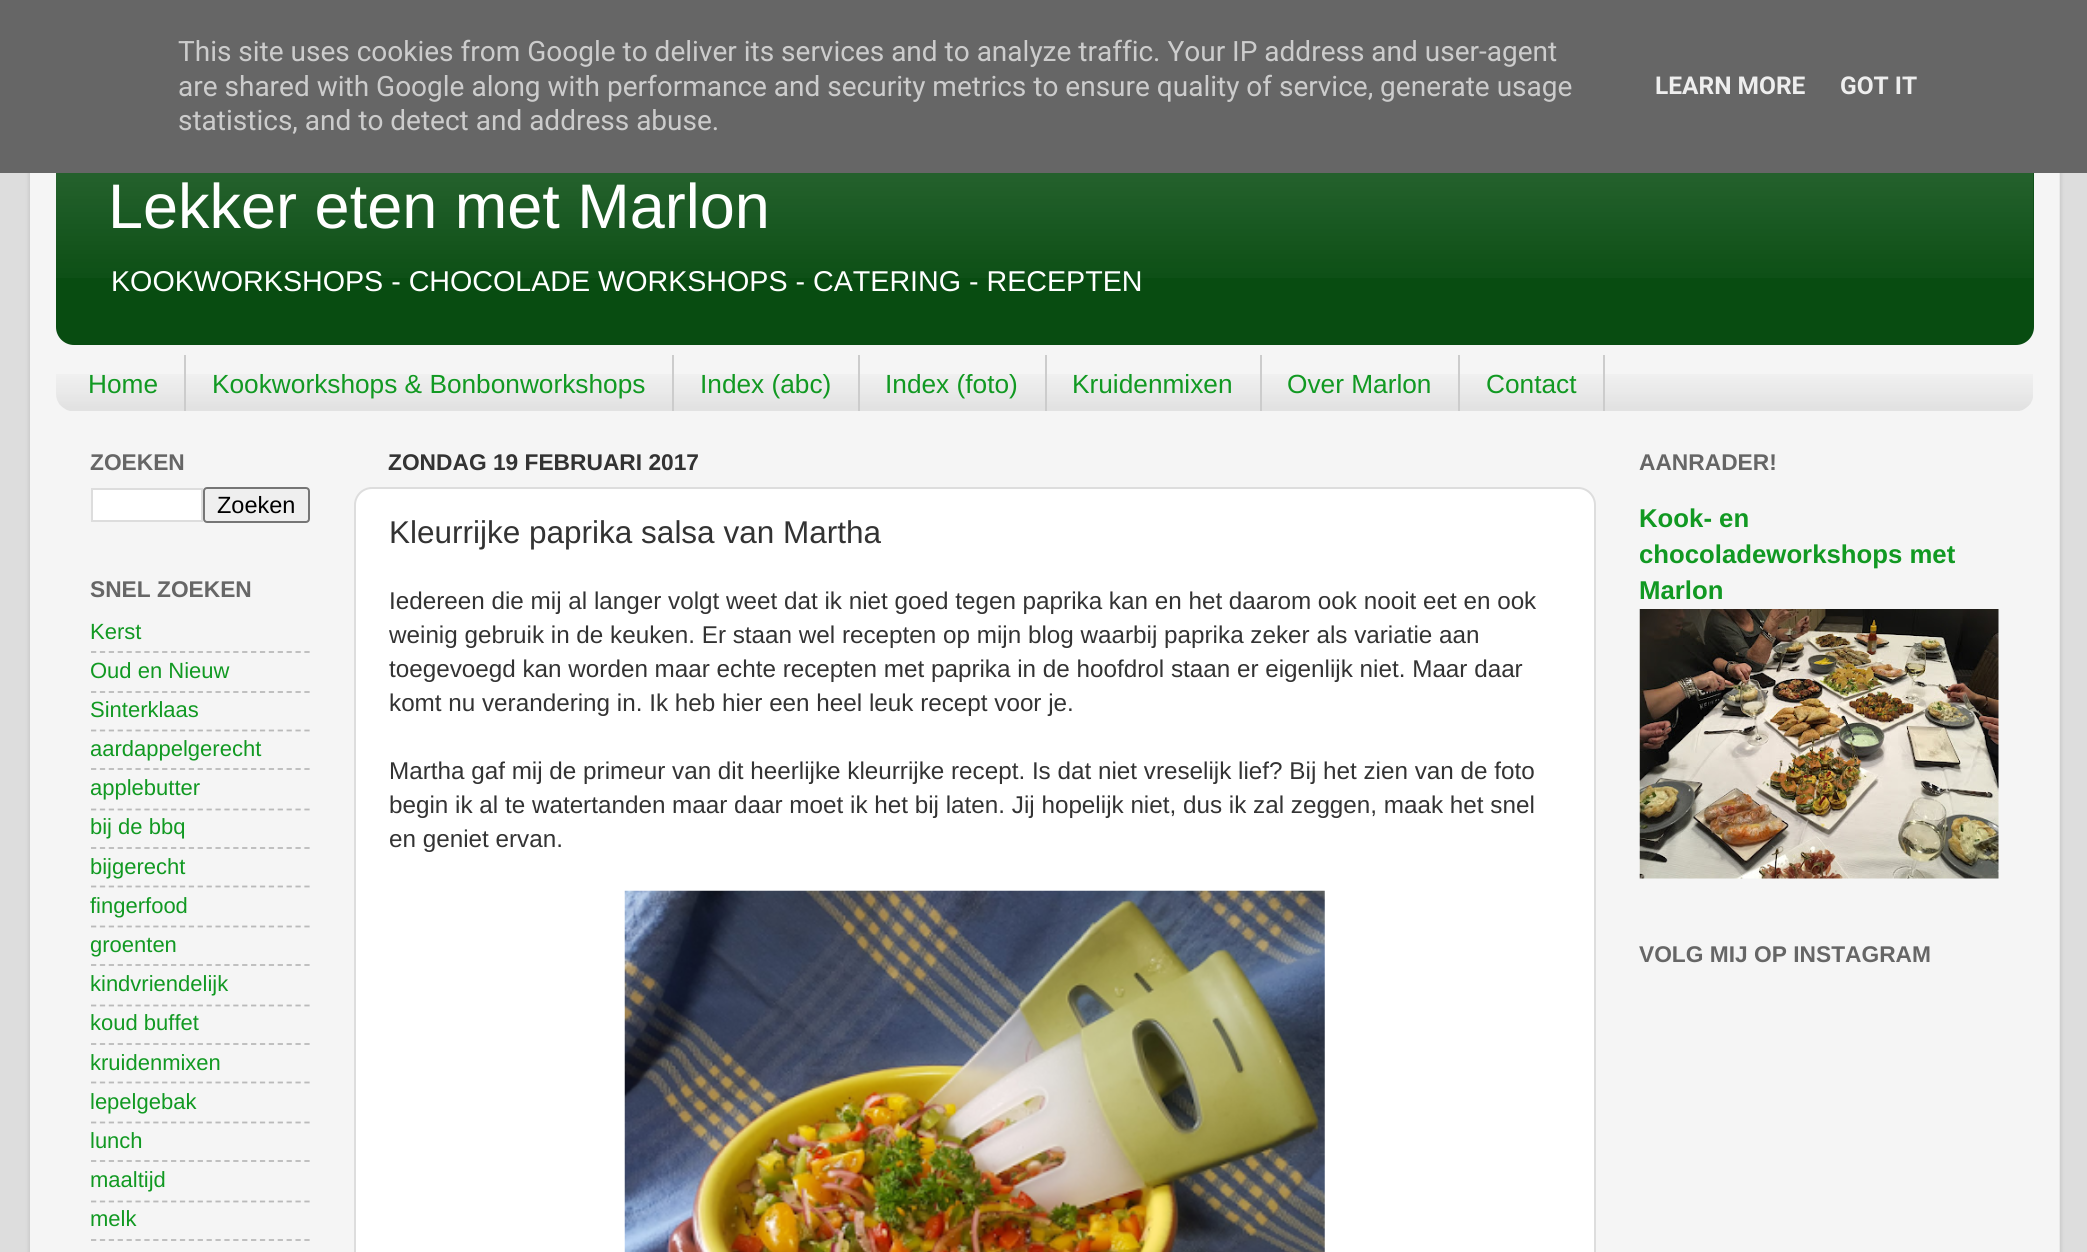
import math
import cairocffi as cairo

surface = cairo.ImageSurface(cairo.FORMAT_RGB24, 2087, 1252)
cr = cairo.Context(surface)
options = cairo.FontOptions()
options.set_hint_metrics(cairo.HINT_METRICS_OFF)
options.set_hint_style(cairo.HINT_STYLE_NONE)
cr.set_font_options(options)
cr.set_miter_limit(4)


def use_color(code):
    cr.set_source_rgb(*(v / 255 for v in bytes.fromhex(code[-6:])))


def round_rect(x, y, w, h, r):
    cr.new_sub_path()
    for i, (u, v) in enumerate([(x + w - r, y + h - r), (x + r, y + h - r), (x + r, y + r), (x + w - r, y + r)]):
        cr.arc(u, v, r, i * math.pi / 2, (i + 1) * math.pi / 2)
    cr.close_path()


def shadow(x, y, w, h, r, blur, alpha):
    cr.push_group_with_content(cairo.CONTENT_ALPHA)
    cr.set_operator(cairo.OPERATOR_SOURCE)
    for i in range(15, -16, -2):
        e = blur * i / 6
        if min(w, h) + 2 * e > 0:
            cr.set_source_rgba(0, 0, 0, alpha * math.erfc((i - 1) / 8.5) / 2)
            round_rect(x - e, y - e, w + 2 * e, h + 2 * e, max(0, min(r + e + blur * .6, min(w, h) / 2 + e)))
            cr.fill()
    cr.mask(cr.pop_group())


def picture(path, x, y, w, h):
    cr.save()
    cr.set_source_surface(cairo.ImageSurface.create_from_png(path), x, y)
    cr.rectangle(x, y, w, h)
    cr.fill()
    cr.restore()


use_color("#dddddd")
cr.paint()
cr.save()
cr.set_fill_rule(cairo.FILL_RULE_EVEN_ODD)
cr.new_path()
cr.move_to(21, 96)
cr.line_to(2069, 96)
cr.line_to(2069, 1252)
cr.line_to(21, 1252)
cr.close_path()
cr.move_to(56, 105)
cr.line_to(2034, 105)
cr.curve_to(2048.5, 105, 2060, 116.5, 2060, 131)
cr.line_to(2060, 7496)
cr.curve_to(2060, 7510.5, 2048.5, 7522, 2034, 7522)
cr.line_to(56, 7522)
cr.curve_to(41.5, 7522, 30, 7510.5, 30, 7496)
cr.line_to(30, 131)
cr.curve_to(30, 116.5, 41.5, 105, 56, 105)
cr.close_path()
cr.clip()
use_color("#000000")
shadow(30, 105, 2030, 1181, 26, 2.5, 0.15)
cr.restore()
picture("img1.png", 30, 173, 2030, 1079)
use_color("#084c11")
round_rect(56, 131, 1978, 214, 18)
cr.fill()
use_color("#666666")
cr.rectangle(0, 0, 2087, 173)
cr.fill()
cr.select_font_face("Roboto")
cr.set_font_size(28)
use_color("#cccccc")
cr.move_to(178, 61)
cr.show_text("This site uses cookies from Google to deliver its services and to analyze traffic. Your IP address and user-agent")
cr.move_to(178, 96)
cr.show_text("are shared with Google along with performance and security metrics to ensure quality of service, generate usage")
cr.move_to(178, 130)
cr.show_text("statistics, and to detect and address abuse.")
cr.select_font_face("Roboto", cairo.FONT_SLANT_NORMAL, cairo.FONT_WEIGHT_BOLD)
cr.set_font_size(24.5)
use_color("#eeeeee")
cr.move_to(1655, 94)
cr.show_text("LEARN MORE")
cr.move_to(1840, 94)
cr.show_text("GOT IT")
picture("img2.png", 56, 173, 1978, 105)
cr.select_font_face("Liberation Sans")
cr.set_font_size(63)
use_color("#ffffff")
cr.move_to(108, 228)
cr.show_text("Lekker eten met Marlon")
cr.set_font_size(28.65)
cr.move_to(111, 291)
cr.show_text("KOOKWORKSHOPS - CHOCOLADE WORKSHOPS - CATERING - RECEPTEN")
picture("img3.png", 56, 374, 1977, 37)
use_color("#cccccc")
cr.rectangle(184, 355, 2, 56)
cr.fill()
cr.set_font_size(26.25)
use_color("#119922")
cr.move_to(88, 393)
cr.show_text("Home")
use_color("#cccccc")
cr.rectangle(672, 355, 2, 56)
cr.fill()
use_color("#119922")
cr.move_to(212, 393)
cr.show_text("Kookworkshops & Bonbonworkshops")
use_color("#cccccc")
cr.rectangle(858, 355, 2, 56)
cr.fill()
use_color("#119922")
cr.move_to(700, 393)
cr.show_text("Index (abc)")
use_color("#cccccc")
cr.rectangle(1045, 355, 2, 56)
cr.fill()
use_color("#119922")
cr.move_to(885, 393)
cr.show_text("Index (foto)")
use_color("#cccccc")
cr.rectangle(1260, 355, 2, 56)
cr.fill()
use_color("#119922")
cr.move_to(1072, 393)
cr.show_text("Kruidenmixen")
use_color("#cccccc")
cr.rectangle(1458, 355, 2, 56)
cr.fill()
use_color("#119922")
cr.move_to(1287, 393)
cr.show_text("Over Marlon")
use_color("#cccccc")
cr.rectangle(1603, 355, 2, 56)
cr.fill()
use_color("#119922")
cr.move_to(1486, 393)
cr.show_text("Contact")
cr.select_font_face("Liberation Sans", cairo.FONT_SLANT_NORMAL, cairo.FONT_WEIGHT_BOLD)
cr.set_font_size(22.75)
use_color("#666666")
cr.move_to(90, 470)
cr.show_text("ZOEKEN")
use_color("#ffffff")
cr.rectangle(92, 489, 110, 32)
cr.fill_preserve()
use_color("#dddddd")
cr.stroke()
use_color("#efefef")
round_rect(204, 488, 105, 34, 3)
cr.fill_preserve()
use_color("#767676")
cr.stroke()
cr.select_font_face("Liberation Sans")
cr.set_font_size(23.5)
use_color("#000000")
cr.move_to(217, 513)
cr.show_text("Zoeken")
cr.select_font_face("Liberation Sans", cairo.FONT_SLANT_NORMAL, cairo.FONT_WEIGHT_BOLD)
cr.set_font_size(22.75)
use_color("#666666")
cr.move_to(90, 597)
cr.show_text("SNEL ZOEKEN")
cr.select_font_face("Liberation Sans")
cr.set_font_size(22)
use_color("#119922")
cr.move_to(90, 639)
cr.show_text("Kerst")
cr.new_path()
cr.move_to(91, 652)
cr.line_to(310, 652)
use_color("#bababa")
cr.set_line_width(1.8)
cr.set_dash([5.25, 3.64])
cr.stroke()
use_color("#119922")
cr.move_to(90, 678)
cr.show_text("Oud en Nieuw")
cr.new_path()
cr.move_to(91, 692)
cr.line_to(310, 692)
use_color("#bababa")
cr.stroke()
use_color("#119922")
cr.move_to(90, 717)
cr.show_text("Sinterklaas")
cr.new_path()
cr.move_to(91, 730.5)
cr.line_to(310, 730.5)
use_color("#bababa")
cr.stroke()
use_color("#119922")
cr.move_to(90, 756)
cr.show_text("aardappelgerecht")
cr.new_path()
cr.move_to(91, 769)
cr.line_to(310, 769)
use_color("#bababa")
cr.stroke()
use_color("#119922")
cr.move_to(90, 795)
cr.show_text("applebutter")
cr.new_path()
cr.move_to(91, 809.5)
cr.line_to(310, 809.5)
use_color("#bababa")
cr.stroke()
use_color("#119922")
cr.move_to(90, 834)
cr.show_text("bij de bbq")
cr.new_path()
cr.move_to(91, 848)
cr.line_to(310, 848)
use_color("#bababa")
cr.stroke()
use_color("#119922")
cr.move_to(90, 874)
cr.show_text("bijgerecht")
cr.new_path()
cr.move_to(91, 886.5)
cr.line_to(310, 886.5)
use_color("#bababa")
cr.stroke()
use_color("#119922")
cr.move_to(90, 913)
cr.show_text("fingerfood")
cr.new_path()
cr.move_to(91, 926.5)
cr.line_to(310, 926.5)
use_color("#bababa")
cr.stroke()
use_color("#119922")
cr.move_to(90, 952)
cr.show_text("groenten")
cr.new_path()
cr.move_to(91, 965)
cr.line_to(310, 965)
use_color("#bababa")
cr.stroke()
use_color("#119922")
cr.move_to(90, 991)
cr.show_text("kindvriendelijk")
cr.new_path()
cr.move_to(91, 1005.5)
cr.line_to(310, 1005.5)
use_color("#bababa")
cr.stroke()
use_color("#119922")
cr.move_to(90, 1030)
cr.show_text("koud buffet")
cr.new_path()
cr.move_to(91, 1044)
cr.line_to(310, 1044)
use_color("#bababa")
cr.stroke()
use_color("#119922")
cr.move_to(90, 1070)
cr.show_text("kruidenmixen")
cr.new_path()
cr.move_to(91, 1082.5)
cr.line_to(310, 1082.5)
use_color("#bababa")
cr.stroke()
use_color("#119922")
cr.move_to(90, 1109)
cr.show_text("lepelgebak")
cr.new_path()
cr.move_to(91, 1122.5)
cr.line_to(310, 1122.5)
use_color("#bababa")
cr.stroke()
use_color("#119922")
cr.move_to(90, 1148)
cr.show_text("lunch")
cr.new_path()
cr.move_to(91, 1161)
cr.line_to(310, 1161)
use_color("#bababa")
cr.stroke()
use_color("#119922")
cr.move_to(90, 1187)
cr.show_text("maaltijd")
cr.new_path()
cr.move_to(91, 1201.5)
cr.line_to(310, 1201.5)
use_color("#bababa")
cr.stroke()
use_color("#119922")
cr.move_to(90, 1226)
cr.show_text("melk")
cr.new_path()
cr.move_to(91, 1240)
cr.line_to(310, 1240)
use_color("#bababa")
cr.stroke()
cr.select_font_face("Liberation Sans", cairo.FONT_SLANT_NORMAL, cairo.FONT_WEIGHT_BOLD)
cr.set_font_size(22.75)
use_color("#333333")
cr.move_to(388, 470)
cr.show_text("ZONDAG 19 FEBRUARI 2017")
use_color("#ffffff")
round_rect(355, 488, 1240, 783, 17)
cr.fill_preserve()
use_color("#dddddd")
cr.set_line_width(2)
cr.set_dash([])
cr.stroke()
cr.select_font_face("Liberation Sans")
cr.set_font_size(31.5)
use_color("#333333")
cr.move_to(389, 543)
cr.show_text("Kleurrijke paprika salsa van Martha")
cr.set_font_size(24.25)
cr.move_to(389, 609)
cr.show_text("Iedereen die mij al langer volgt weet dat ik niet goed tegen paprika kan en het daarom ook nooit eet en ook")
cr.move_to(389, 643)
cr.show_text("weinig gebruik in de keuken. Er staan wel recepten op mijn blog waarbij paprika zeker als variatie aan")
cr.move_to(389, 677)
cr.show_text("toegevoegd kan worden maar echte recepten met paprika in de hoofdrol staan er eigenlijk niet. Maar daar")
cr.move_to(389, 711)
cr.show_text("komt nu verandering in. Ik heb hier een heel leuk recept voor je.")
cr.move_to(389, 779)
cr.show_text("Martha gaf mij de primeur van dit heerlijke kleurrijke recept. Is dat niet vreselijk lief? Bij het zien van de foto")
cr.move_to(389, 813)
cr.show_text("begin ik al te watertanden maar daar moet ik het bij laten. Jij hopelijk niet, dus ik zal zeggen, maak het snel")
cr.move_to(389, 847)
cr.show_text("en geniet ervan.")
picture("img4.png", 624, 890, 701, 362)
cr.select_font_face("Liberation Sans", cairo.FONT_SLANT_NORMAL, cairo.FONT_WEIGHT_BOLD)
cr.set_font_size(22.75)
use_color("#666666")
cr.move_to(1639, 470)
cr.show_text("AANRADER!")
cr.set_font_size(25.75)
use_color("#119922")
cr.move_to(1639, 527)
cr.show_text("Kook- en")
cr.move_to(1639, 563)
cr.show_text("chocoladeworkshops met")
cr.move_to(1639, 599)
cr.show_text("Marlon")
picture("img5.png", 1639, 609, 360, 270)
cr.set_font_size(22.75)
use_color("#666666")
cr.move_to(1639, 962)
cr.show_text("VOLG MIJ OP INSTAGRAM")
surface.write_to_png("result.png")
